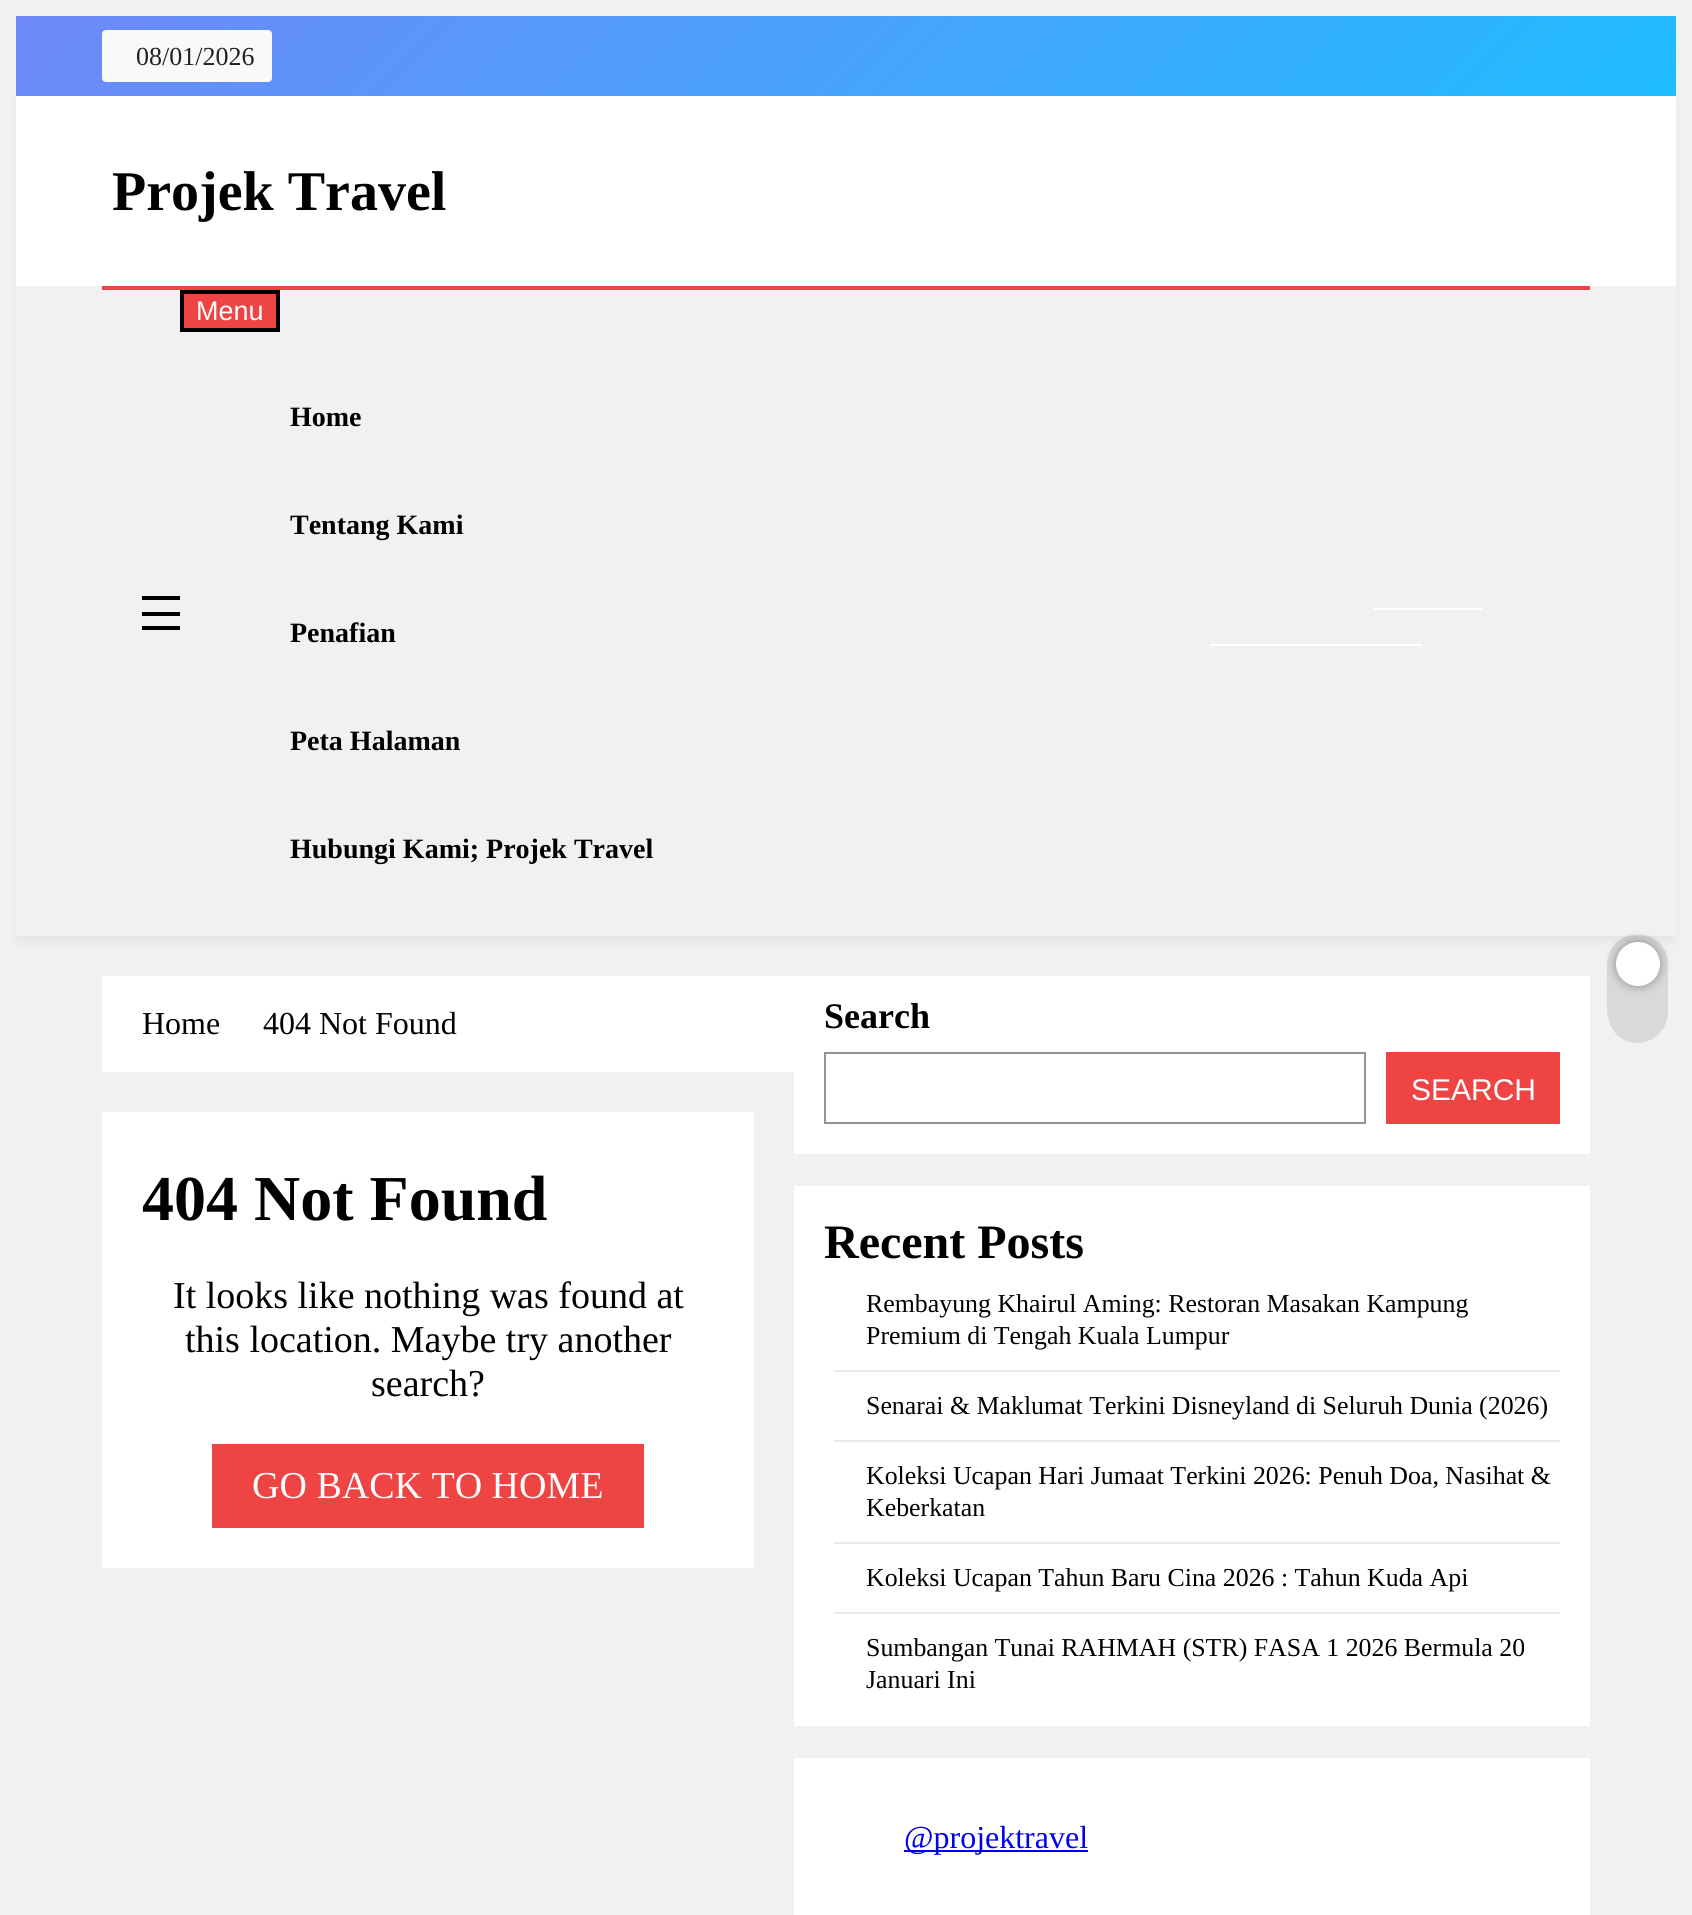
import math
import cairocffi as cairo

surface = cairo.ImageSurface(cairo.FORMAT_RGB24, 1692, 1915)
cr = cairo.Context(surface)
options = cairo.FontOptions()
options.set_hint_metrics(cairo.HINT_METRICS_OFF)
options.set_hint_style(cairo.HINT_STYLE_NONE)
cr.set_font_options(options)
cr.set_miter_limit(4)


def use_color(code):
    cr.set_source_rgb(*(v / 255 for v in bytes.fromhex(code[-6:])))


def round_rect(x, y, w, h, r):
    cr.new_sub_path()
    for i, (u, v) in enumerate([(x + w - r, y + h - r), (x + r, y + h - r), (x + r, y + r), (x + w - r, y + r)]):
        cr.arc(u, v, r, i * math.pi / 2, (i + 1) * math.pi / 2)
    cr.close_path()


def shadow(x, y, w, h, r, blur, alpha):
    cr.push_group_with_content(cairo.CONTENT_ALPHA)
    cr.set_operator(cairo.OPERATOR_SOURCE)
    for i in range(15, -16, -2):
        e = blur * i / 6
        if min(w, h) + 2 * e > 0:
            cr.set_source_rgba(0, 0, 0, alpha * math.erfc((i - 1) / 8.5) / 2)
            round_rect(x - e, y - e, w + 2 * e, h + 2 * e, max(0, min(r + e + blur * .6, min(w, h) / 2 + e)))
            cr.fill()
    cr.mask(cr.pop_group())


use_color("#f0f1f2")
cr.paint()
gradient = cairo.LinearGradient(411, -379, 1281, 491)
gradient.add_color_stop_rgba(0, 0.435, 0.533, 0.98, 1)
gradient.add_color_stop_rgba(1, 0.125, 0.741, 1, 1)
cr.set_source(gradient)
cr.rectangle(16, 16, 1660, 80)
cr.fill()
use_color("#f9f9f9")
round_rect(102, 30, 170, 52, 4)
cr.fill()
cr.select_font_face("Liberation Serif")
cr.set_font_size(26)
use_color("#222222")
cr.move_to(136, 65)
cr.show_text("08/01/2026")
cr.save()
cr.set_fill_rule(cairo.FILL_RULE_EVEN_ODD)
cr.new_path()
cr.move_to(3, 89)
cr.line_to(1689, 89)
cr.line_to(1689, 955)
cr.line_to(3, 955)
cr.close_path()
cr.move_to(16, 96)
cr.line_to(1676, 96)
cr.line_to(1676, 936)
cr.line_to(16, 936)
cr.close_path()
cr.clip()
use_color("#000000")
shadow(16, 102, 1660, 840, 0, 4, 0.05)
cr.restore()
use_color("#ffffff")
cr.rectangle(16, 96, 1660, 190)
cr.fill()
cr.select_font_face("Liberation Serif", cairo.FONT_SLANT_NORMAL, cairo.FONT_WEIGHT_BOLD)
cr.set_font_size(56)
use_color("#000000")
cr.move_to(112, 210)
cr.show_text("Projek Travel")
use_color("#ef4444")
cr.rectangle(102, 286, 1488, 4)
cr.fill()
use_color("#000000")
cr.rectangle(142, 596, 38, 4)
cr.fill()
cr.rectangle(142, 612, 38, 4)
cr.fill()
cr.rectangle(142, 626, 38, 4)
cr.fill()
use_color("#ef4444")
cr.rectangle(182, 292, 96, 38)
cr.fill_preserve()
use_color("#000000")
cr.set_line_width(4)
cr.stroke()
cr.select_font_face("Liberation Sans")
cr.set_font_size(27)
use_color("#ffffff")
cr.move_to(196, 320)
cr.show_text("Menu")
cr.select_font_face("Liberation Serif", cairo.FONT_SLANT_NORMAL, cairo.FONT_WEIGHT_BOLD)
cr.set_font_size(28)
use_color("#000000")
cr.move_to(290, 426)
cr.show_text("Home")
cr.move_to(290, 534)
cr.show_text("Tentang Kami")
cr.move_to(290, 642)
cr.show_text("Penafian")
cr.move_to(290, 750)
cr.show_text("Peta Halaman")
cr.move_to(290, 858)
cr.show_text("Hubungi Kami; Projek Travel")
use_color("#ffffff")
cr.rectangle(1374, 608, 108, 2)
cr.fill()
cr.rectangle(1210, 644, 212, 2)
cr.fill()
cr.set_source_rgba(0, 0, 0, 0.1)
cr.new_path()
cr.move_to(1668, 964)
cr.line_to(1668, 1012)
cr.curve_to(1667, 1046, 1622, 1055, 1610, 1024)
cr.curve_to(1606, 1015, 1607, 999, 1607, 988)
cr.line_to(1607, 964)
cr.curve_to(1609, 923, 1668, 926, 1668, 964)
cr.close_path()
cr.fill()
use_color("#000000")
shadow(1616, 942, 44, 44, 22, 5, 0.35)
use_color("#ffffff")
cr.arc(1638, 964, 22, 0, 2 * math.pi)
cr.fill()
cr.rectangle(102, 976, 692, 96)
cr.fill()
cr.select_font_face("Liberation Serif")
cr.set_font_size(32)
use_color("#000000")
cr.move_to(142, 1034)
cr.show_text("Home")
cr.move_to(263, 1034)
cr.show_text("404 Not Found")
use_color("#ffffff")
cr.rectangle(102, 1112, 652, 456)
cr.fill()
cr.select_font_face("Liberation Serif", cairo.FONT_SLANT_NORMAL, cairo.FONT_WEIGHT_BOLD)
cr.set_font_size(64)
use_color("#000000")
cr.move_to(142, 1220)
cr.show_text("404 Not Found")
cr.select_font_face("Liberation Serif")
cr.set_font_size(38)
cr.move_to(173, 1308)
cr.show_text("It looks like nothing was found at")
cr.move_to(185, 1352)
cr.show_text("this location. Maybe try another")
cr.move_to(371, 1396)
cr.show_text("search?")
use_color("#ef4444")
cr.rectangle(212, 1444, 432, 84)
cr.fill()
use_color("#ffffff")
cr.move_to(252, 1498)
cr.show_text("GO BACK TO HOME")
cr.rectangle(794, 976, 796, 178)
cr.fill()
cr.select_font_face("Liberation Serif", cairo.FONT_SLANT_NORMAL, cairo.FONT_WEIGHT_BOLD)
cr.set_font_size(36)
use_color("#000000")
cr.move_to(824, 1028)
cr.show_text("Search")
cr.rectangle(825, 1053, 540, 70)
use_color("#949494")
cr.set_line_width(2)
cr.stroke()
use_color("#ef4444")
cr.rectangle(1386, 1052, 174, 72)
cr.fill()
cr.select_font_face("Liberation Sans")
cr.set_font_size(30)
use_color("#ffffff")
cr.move_to(1411, 1100)
cr.show_text("SEARCH")
cr.rectangle(794, 1186, 796, 540)
cr.fill()
cr.select_font_face("Liberation Serif", cairo.FONT_SLANT_NORMAL, cairo.FONT_WEIGHT_BOLD)
cr.set_font_size(48)
use_color("#000000")
cr.move_to(824, 1258)
cr.show_text("Recent Posts")
use_color("#eaeaea")
cr.rectangle(834, 1370, 726, 2)
cr.fill()
cr.select_font_face("Liberation Serif")
cr.set_font_size(25.85)
use_color("#000000")
cr.move_to(866, 1312)
cr.show_text("Rembayung Khairul Aming: Restoran Masakan Kampung")
cr.move_to(866, 1344)
cr.show_text("Premium di Tengah Kuala Lumpur")
use_color("#eaeaea")
cr.rectangle(834, 1440, 726, 2)
cr.fill()
use_color("#000000")
cr.move_to(866, 1414)
cr.show_text("Senarai & Maklumat Terkini Disneyland di Seluruh Dunia (2026)")
use_color("#eaeaea")
cr.rectangle(834, 1542, 726, 2)
cr.fill()
use_color("#000000")
cr.move_to(866, 1484)
cr.show_text("Koleksi Ucapan Hari Jumaat Terkini 2026: Penuh Doa, Nasihat &")
cr.move_to(866, 1516)
cr.show_text("Keberkatan")
use_color("#eaeaea")
cr.rectangle(834, 1612, 726, 2)
cr.fill()
use_color("#000000")
cr.move_to(866, 1586)
cr.show_text("Koleksi Ucapan Tahun Baru Cina 2026 : Tahun Kuda Api")
cr.move_to(866, 1656)
cr.show_text("Sumbangan Tunai RAHMAH (STR) FASA 1 2026 Bermula 20")
cr.move_to(866, 1688)
cr.show_text("Januari Ini")
use_color("#ffffff")
cr.rectangle(794, 1758, 796, 157)
cr.fill()
use_color("#0000ee")
cr.rectangle(904, 1850, 184, 2)
cr.fill()
cr.set_font_size(32)
cr.move_to(904, 1848)
cr.show_text("@projektravel")
surface.write_to_png("result.png")
